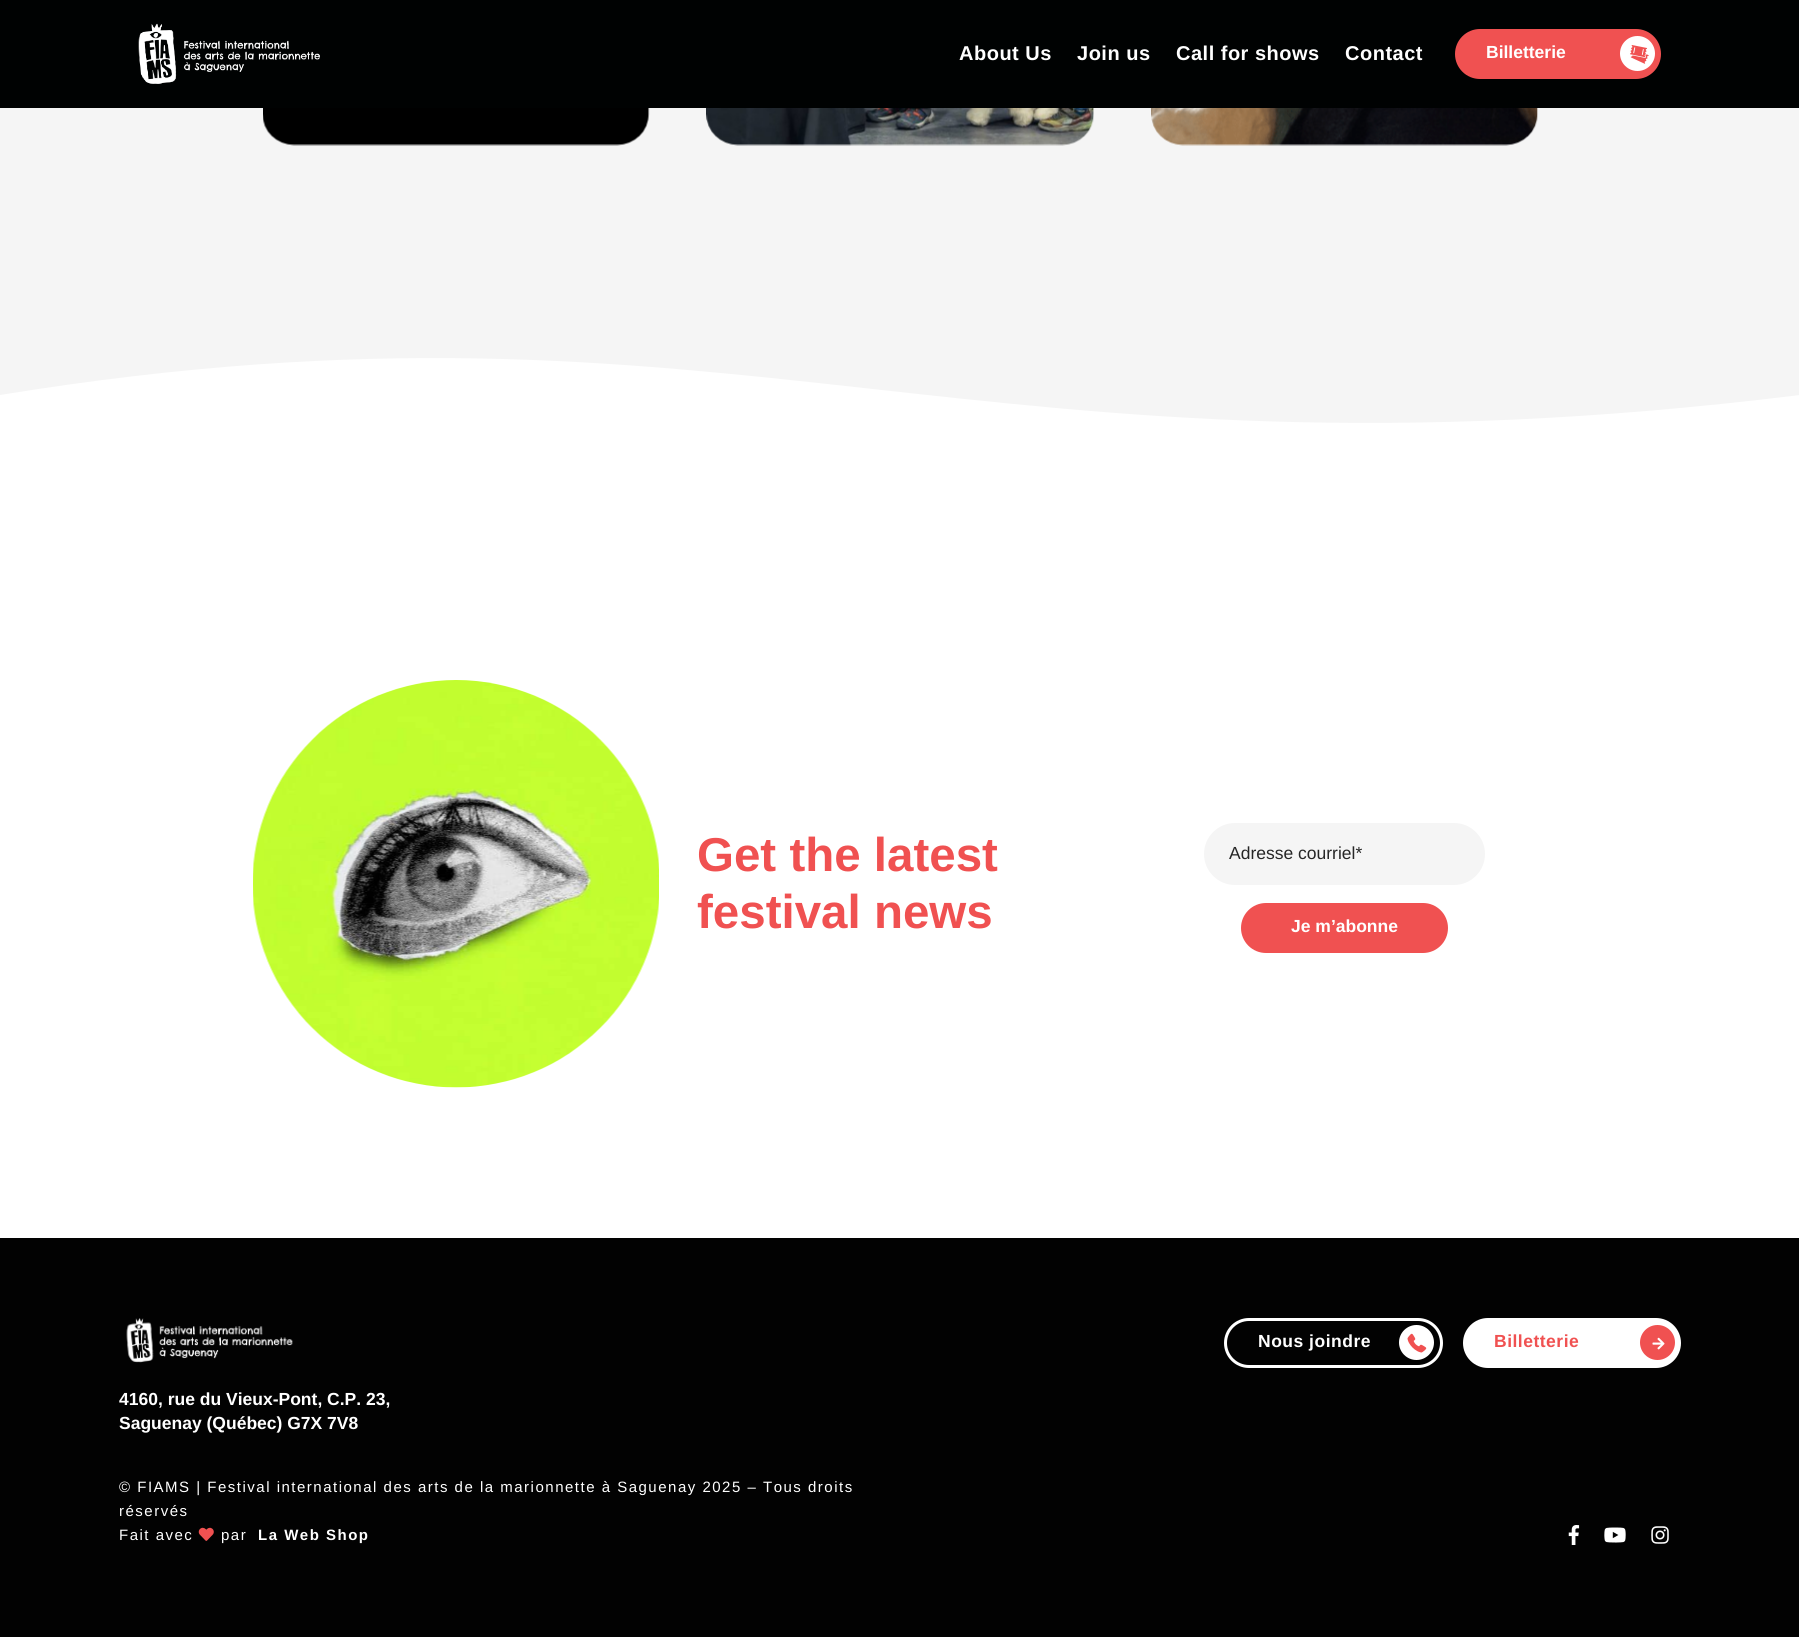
import math
import cairocffi as cairo

surface = cairo.ImageSurface(cairo.FORMAT_RGB24, 1799, 1637)
cr = cairo.Context(surface)
options = cairo.FontOptions()
options.set_hint_metrics(cairo.HINT_METRICS_OFF)
options.set_hint_style(cairo.HINT_STYLE_NONE)
cr.set_font_options(options)
cr.set_miter_limit(4)


def use_color(code):
    cr.set_source_rgb(*(v / 255 for v in bytes.fromhex(code[-6:])))


def spaced_text(x, y, s, letter, word):
    cr.move_to(x, y)
    for ch in s:
        cr.show_text(ch)
        cr.rel_move_to(letter + word * (ch == ' '), 0)


def round_rect(x, y, w, h, r):
    cr.new_sub_path()
    for i, (u, v) in enumerate([(x + w - r, y + h - r), (x + r, y + h - r), (x + r, y + r), (x + w - r, y + r)]):
        cr.arc(u, v, r, i * math.pi / 2, (i + 1) * math.pi / 2)
    cr.close_path()


def picture(path, x, y, w, h):
    cr.save()
    cr.set_source_surface(cairo.ImageSurface.create_from_png(path), x, y)
    cr.rectangle(x, y, w, h)
    cr.fill()
    cr.restore()


use_color("#ffffff")
cr.paint()
use_color("#000202")
cr.rectangle(0, 0, 1799, 108)
cr.fill()
picture("img1.png", 138, 23, 182, 61)
cr.select_font_face("Liberation Sans", cairo.FONT_SLANT_NORMAL, cairo.FONT_WEIGHT_BOLD)
cr.set_font_size(20)
use_color("#ffffff")
spaced_text(959, 60, "About Us", 0.5, 0)
spaced_text(1077, 60, "Join us", 0.5, 0)
spaced_text(1176, 60, "Call for shows", 0.5, 0)
spaced_text(1345, 60, "Contact", 0.5, 0)
use_color("#f05151")
round_rect(1455, 29, 206, 50, 25)
cr.fill()
cr.set_font_size(17.5)
use_color("#ffffff")
cr.move_to(1486, 58)
cr.show_text("Billetterie")
cr.new_path()
cr.arc(1637.5, 53.5, 17.5, 0, 2 * math.pi)
cr.fill()
picture("img2.png", 1630, 45, 19, 19)
use_color("#f5f5f5")
cr.rectangle(0, 108, 1799, 224)
cr.fill()
picture("img3.png", 263, 108, 387, 38)
picture("img4.png", 706, 108, 388, 38)
picture("img5.png", 1151, 108, 387, 38)
cr.new_path()
cr.move_to(0, 395)
cr.curve_to(743, 274, 966, 498, 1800, 395)
cr.line_to(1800, 332)
cr.line_to(-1, 331)
cr.close_path()
cr.fill()
picture("img6.png", 253, 680, 406, 408)
cr.set_font_size(47.5)
use_color("#f05151")
cr.move_to(697, 871)
cr.show_text("Get the latest")
cr.move_to(697, 928)
cr.show_text("festival news")
use_color("#f5f5f5")
round_rect(1204, 823, 281, 62, 31)
cr.fill()
cr.select_font_face("Liberation Sans")
cr.set_font_size(17.5)
use_color("#262626")
cr.move_to(1229, 859)
cr.show_text("Adresse courriel*")
use_color("#f05151")
round_rect(1241, 903, 207, 50, 25)
cr.fill()
cr.select_font_face("Liberation Sans", cairo.FONT_SLANT_NORMAL, cairo.FONT_WEIGHT_BOLD)
use_color("#ffffff")
cr.move_to(1291, 932)
cr.show_text("Je m’abonne")
use_color("#020202")
cr.rectangle(0, 1238, 1799, 399)
cr.fill()
round_rect(1225.5, 1319.5, 216, 47, 23.5)
use_color("#ffffff")
cr.set_line_width(3)
cr.stroke()
spaced_text(1258, 1347, "Nous joindre", 0.5, 0)
cr.new_path()
cr.arc(1416.5, 1342.5, 17.5, 0, 2 * math.pi)
cr.fill()
picture("img7.png", 1407, 1333, 20, 20)
round_rect(1463, 1318, 218, 50, 25)
cr.fill()
use_color("#f05151")
spaced_text(1494, 1347, "Billetterie", 0.5, 0)
cr.new_path()
cr.arc(1657.5, 1342.5, 17.5, 0, 2 * math.pi)
cr.fill()
picture("img8.png", 1652, 1337, 13, 13)
picture("img9.png", 1568, 1525, 12, 20)
picture("img10.png", 1604, 1527, 22, 16)
picture("img11.png", 1651, 1526, 18, 18)
picture("img12.png", 126, 1318, 167, 45)
use_color("#ffffff")
cr.move_to(119, 1405)
cr.show_text("4160, rue du Vieux-Pont, C.P. 23,")
cr.move_to(119, 1429)
cr.show_text("Saguenay (Québec) G7X 7V8")
cr.select_font_face("Liberation Sans")
cr.set_font_size(15)
spaced_text(119, 1492, "© FIAMS | Festival international des arts de la marionnette à Saguenay 2025 – Tous droits", 1.5, 0)
spaced_text(119, 1516, "réservés", 1.5, 0)
spaced_text(119, 1540, "Fait avec", 1.5, 0)
picture("img13.png", 198, 1527, 16, 14)
spaced_text(221, 1540, "par", 1.5, 0)
cr.select_font_face("Liberation Sans", cairo.FONT_SLANT_NORMAL, cairo.FONT_WEIGHT_BOLD)
spaced_text(258, 1540, "La Web Shop", 1.5, 0)
surface.write_to_png("result.png")
